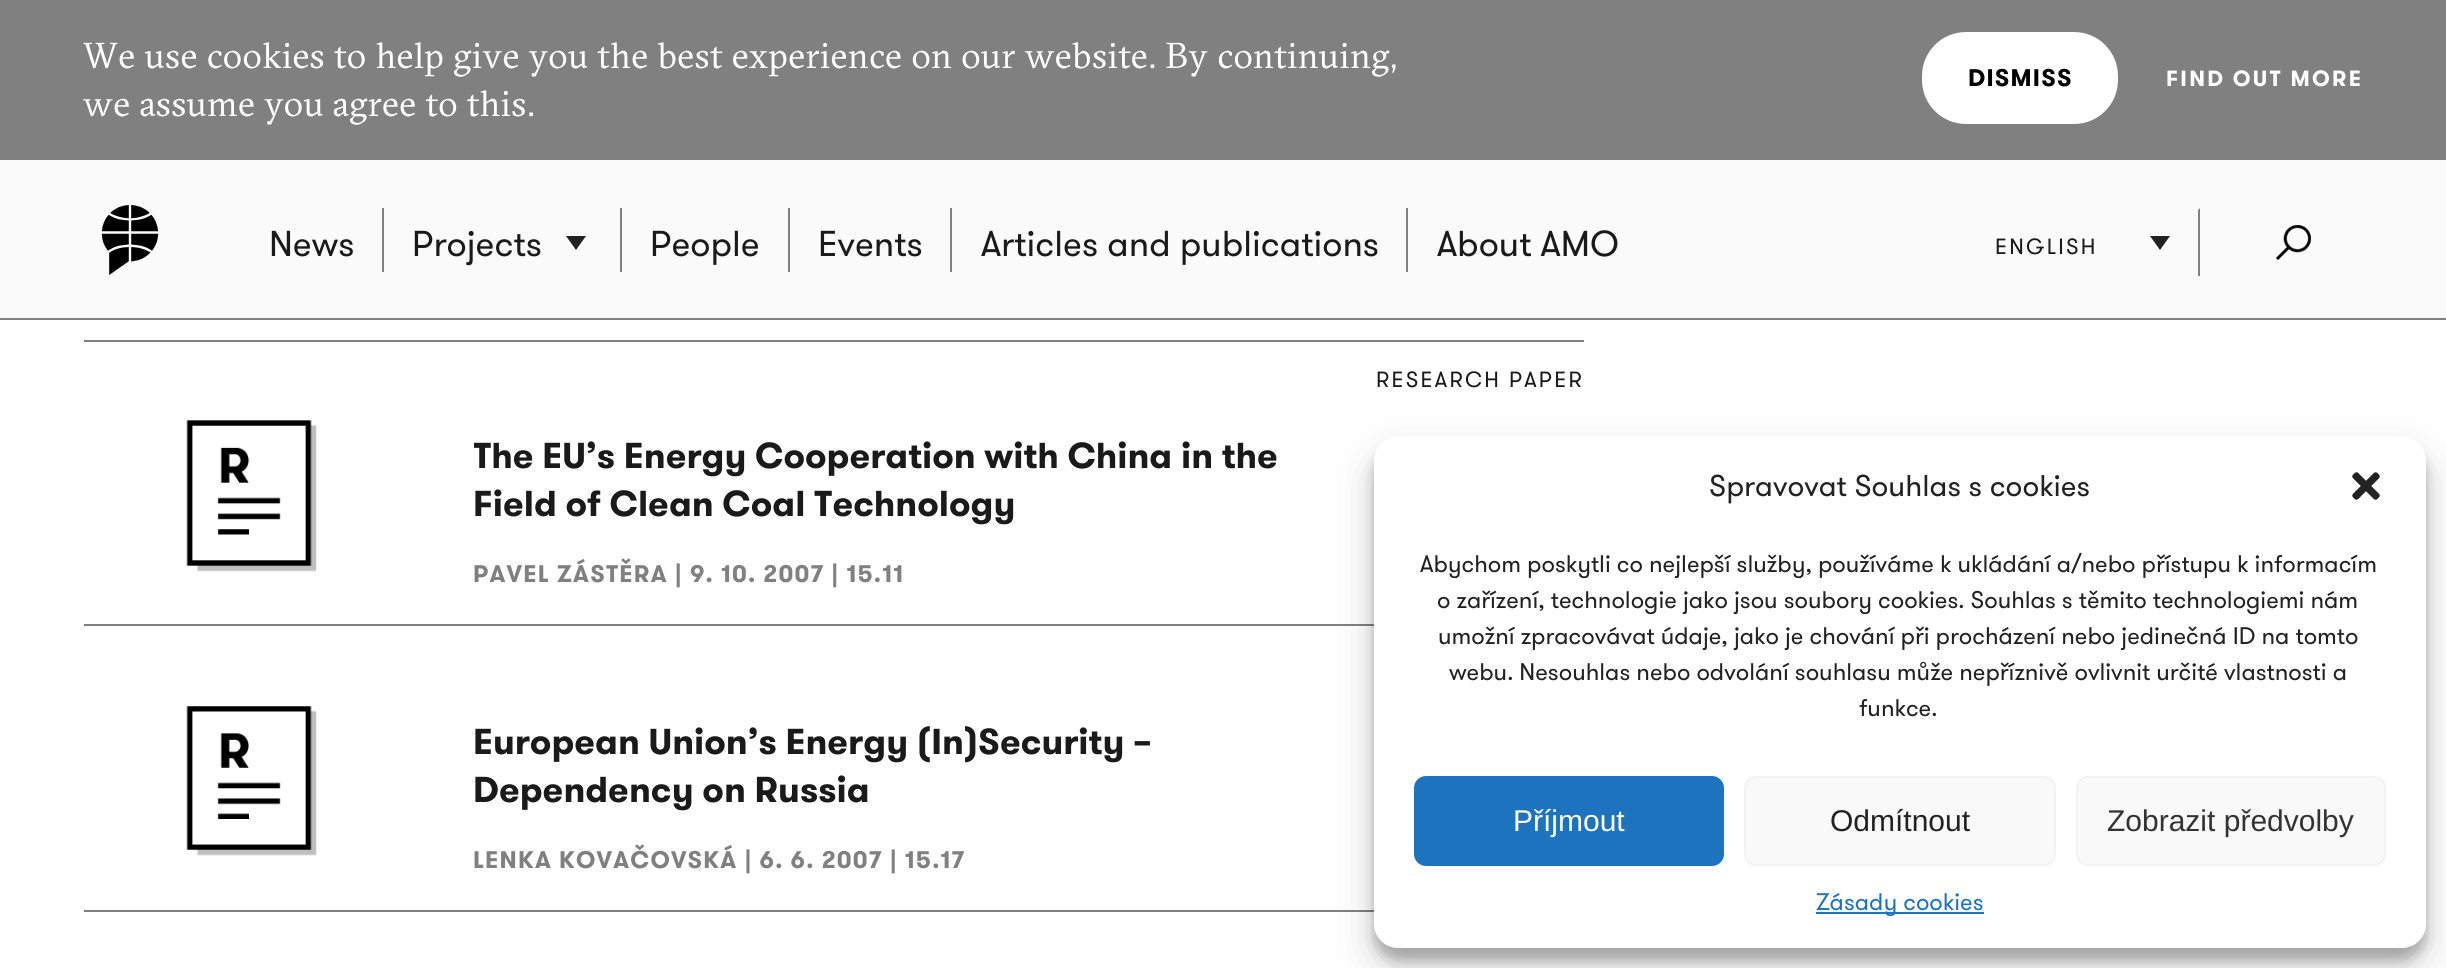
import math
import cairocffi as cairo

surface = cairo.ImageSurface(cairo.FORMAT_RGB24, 2446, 968)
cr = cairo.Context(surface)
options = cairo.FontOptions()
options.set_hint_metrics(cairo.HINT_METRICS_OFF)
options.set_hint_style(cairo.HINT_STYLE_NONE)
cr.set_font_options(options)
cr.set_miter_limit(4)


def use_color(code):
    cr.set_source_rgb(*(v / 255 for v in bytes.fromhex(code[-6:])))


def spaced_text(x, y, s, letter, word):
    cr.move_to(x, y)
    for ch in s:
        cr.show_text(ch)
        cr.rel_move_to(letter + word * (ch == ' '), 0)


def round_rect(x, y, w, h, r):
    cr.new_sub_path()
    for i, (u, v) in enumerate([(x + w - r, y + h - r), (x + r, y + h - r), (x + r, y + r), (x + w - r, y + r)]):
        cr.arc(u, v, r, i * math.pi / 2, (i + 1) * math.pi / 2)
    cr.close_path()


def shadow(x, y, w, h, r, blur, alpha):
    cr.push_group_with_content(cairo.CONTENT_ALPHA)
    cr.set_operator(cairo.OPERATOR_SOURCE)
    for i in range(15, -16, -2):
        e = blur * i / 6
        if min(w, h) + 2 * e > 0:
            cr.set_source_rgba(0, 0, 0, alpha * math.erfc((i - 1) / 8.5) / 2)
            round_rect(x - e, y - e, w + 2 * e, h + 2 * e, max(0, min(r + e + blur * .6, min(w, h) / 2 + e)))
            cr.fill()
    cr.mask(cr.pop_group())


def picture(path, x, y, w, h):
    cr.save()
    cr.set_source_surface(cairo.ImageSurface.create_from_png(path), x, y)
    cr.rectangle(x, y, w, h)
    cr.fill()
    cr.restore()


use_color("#ffffff")
cr.paint()
use_color("#808080")
cr.rectangle(0, 0, 2446, 160)
cr.fill()
cr.select_font_face("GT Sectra")
cr.set_font_size(36)
use_color("#ffffff")
spaced_text(83, 68, "We use cookies to help give you the best experience on our website. By continuing,", 0.35, 0)
spaced_text(83, 116, "we assume you agree to this.", 0.35, 0)
round_rect(1922, 32, 196, 92, 44)
cr.fill()
cr.select_font_face("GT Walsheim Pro", cairo.FONT_SLANT_NORMAL, cairo.FONT_WEIGHT_BOLD)
cr.set_font_size(24)
use_color("#000000")
spaced_text(1968, 86, "DISMISS", 1.2, 0)
cr.set_font_size(22)
use_color("#ffffff")
spaced_text(2166, 86, "FIND OUT MORE", 2.25, 0)
use_color("#fafafa")
cr.rectangle(0, 160, 2446, 158)
cr.fill()
use_color("#808080")
cr.rectangle(0, 318, 2446, 2)
cr.fill()
picture("img1.png", 101, 205, 58, 70)
cr.select_font_face("GT Walsheim Pro")
cr.set_font_size(36)
use_color("#1a1a1a")
cr.move_to(269, 256)
cr.show_text("News")
use_color("#808080")
cr.rectangle(382, 208, 2, 64)
cr.fill()
use_color("#1a1a1a")
cr.move_to(412, 256)
cr.show_text("Projects")
use_color("#202121")
cr.new_path()
cr.move_to(566, 236)
cr.line_to(586, 236)
cr.line_to(576, 250)
cr.close_path()
cr.fill()
use_color("#808080")
cr.rectangle(620, 208, 2, 64)
cr.fill()
use_color("#1a1a1a")
cr.move_to(650, 256)
cr.show_text("People")
use_color("#808080")
cr.rectangle(788, 208, 2, 64)
cr.fill()
use_color("#1a1a1a")
cr.move_to(818, 256)
cr.show_text("Events")
use_color("#808080")
cr.rectangle(950, 208, 2, 64)
cr.fill()
use_color("#1a1a1a")
cr.move_to(981, 256)
cr.show_text("Articles and publications")
use_color("#808080")
cr.rectangle(1406, 208, 2, 64)
cr.fill()
use_color("#1a1a1a")
cr.move_to(1437, 256)
cr.show_text("About AMO")
cr.save()
cr.rectangle(1892, 208, 308, 68)
cr.clip()
use_color("#808080")
cr.new_path()
cr.move_to(2200, 208)
cr.line_to(2200, 280)
cr.line_to(2198, 278)
cr.line_to(2198, 210)
cr.close_path()
cr.fill()
cr.restore()
cr.set_font_size(22)
spaced_text(1995, 254, "ENGLISH", 2.25, 0)
use_color("#202121")
cr.new_path()
cr.move_to(2150, 236)
cr.line_to(2170, 236)
cr.line_to(2160, 250)
cr.close_path()
cr.fill()
picture("img2.png", 2276, 225, 35, 35)
use_color("#808080")
cr.rectangle(84, 340, 1500, 2)
cr.fill()
cr.rectangle(84, 624, 1290, 2)
cr.fill()
use_color("#1a1a1a")
spaced_text(1376, 387, "RESEARCH PAPER", 2.25, 0)
picture("img3.png", 186, 420, 131, 152)
cr.save()
cr.rectangle(474, 410, 820, 140)
cr.clip()
cr.select_font_face("GT Walsheim Pro", cairo.FONT_SLANT_NORMAL, cairo.FONT_WEIGHT_BOLD)
cr.set_font_size(36)
cr.move_to(473, 468)
cr.show_text("The EU’s Energy Cooperation with China in the")
cr.restore()
cr.select_font_face("GT Walsheim Pro", cairo.FONT_SLANT_NORMAL, cairo.FONT_WEIGHT_BOLD)
cr.set_font_size(36)
cr.move_to(473, 516)
cr.show_text("Field of Clean Coal Technology")
cr.set_font_size(24)
use_color("#808080")
spaced_text(473, 582, "PAVEL ZÁSTĚRA | 9. 10. 2007 | 15.11", 1.2, 0)
cr.rectangle(84, 910, 1290, 2)
cr.fill()
picture("img4.png", 186, 706, 131, 150)
cr.set_font_size(36)
use_color("#1a1a1a")
cr.move_to(473, 754)
cr.show_text("European Union’s Energy (In)Security –")
cr.move_to(473, 802)
cr.show_text("Dependency on Russia")
cr.set_font_size(24)
use_color("#808080")
spaced_text(473, 868, "LENKA KOVAČOVSKÁ | 6. 6. 2007 | 15.17", 1.2, 0)
use_color("#000000")
shadow(1374, 448, 1052, 512, 24, 6, 0.23)
shadow(1374, 456, 1052, 512, 24, 20, 0.19)
use_color("#ffffff")
round_rect(1374, 436, 1052, 512, 24)
cr.fill()
cr.select_font_face("GT Walsheim Pro")
cr.set_font_size(30)
use_color("#222222")
cr.move_to(1709, 496)
cr.show_text("Spravovat Souhlas s cookies")
picture("img5.png", 2352, 472, 28, 28)
cr.set_font_size(24)
cr.move_to(1420, 572)
cr.show_text("Abychom poskytli co nejlepší služby, používáme k ukládání a/nebo přístupu k informacím")
cr.move_to(1437, 608)
cr.show_text("o zařízení, technologie jako jsou soubory cookies. Souhlas s těmito technologiemi nám")
cr.move_to(1438, 644)
cr.show_text("umožní zpracovávat údaje, jako je chování při procházení nebo jedinečná ID na tomto")
cr.move_to(1449, 680)
cr.show_text("webu. Nesouhlas nebo odvolání souhlasu může nepříznivě ovlivnit určité vlastnosti a")
cr.move_to(1859, 716)
cr.show_text("funkce.")
use_color("#1e73be")
round_rect(1415, 777, 308, 88, 11)
cr.fill_preserve()
cr.stroke()
cr.select_font_face("Liberation Sans")
cr.set_font_size(30)
use_color("#ffffff")
cr.move_to(1513, 831)
cr.show_text("Příjmout")
use_color("#f9f9f9")
round_rect(1745, 777, 310, 88, 11)
cr.fill_preserve()
use_color("#f2f2f2")
cr.stroke()
use_color("#222222")
cr.move_to(1830, 831)
cr.show_text("Odmítnout")
use_color("#f9f9f9")
round_rect(2077, 777, 308, 88, 11)
cr.fill_preserve()
use_color("#f2f2f2")
cr.stroke()
use_color("#333333")
cr.move_to(2107, 831)
cr.show_text("Zobrazit předvolby")
use_color("#1e73be")
cr.rectangle(1816, 912, 168, 2)
cr.fill()
cr.select_font_face("GT Walsheim Pro")
cr.set_font_size(24)
cr.move_to(1816, 910)
cr.show_text("Zásady cookies")
surface.write_to_png("result.png")
